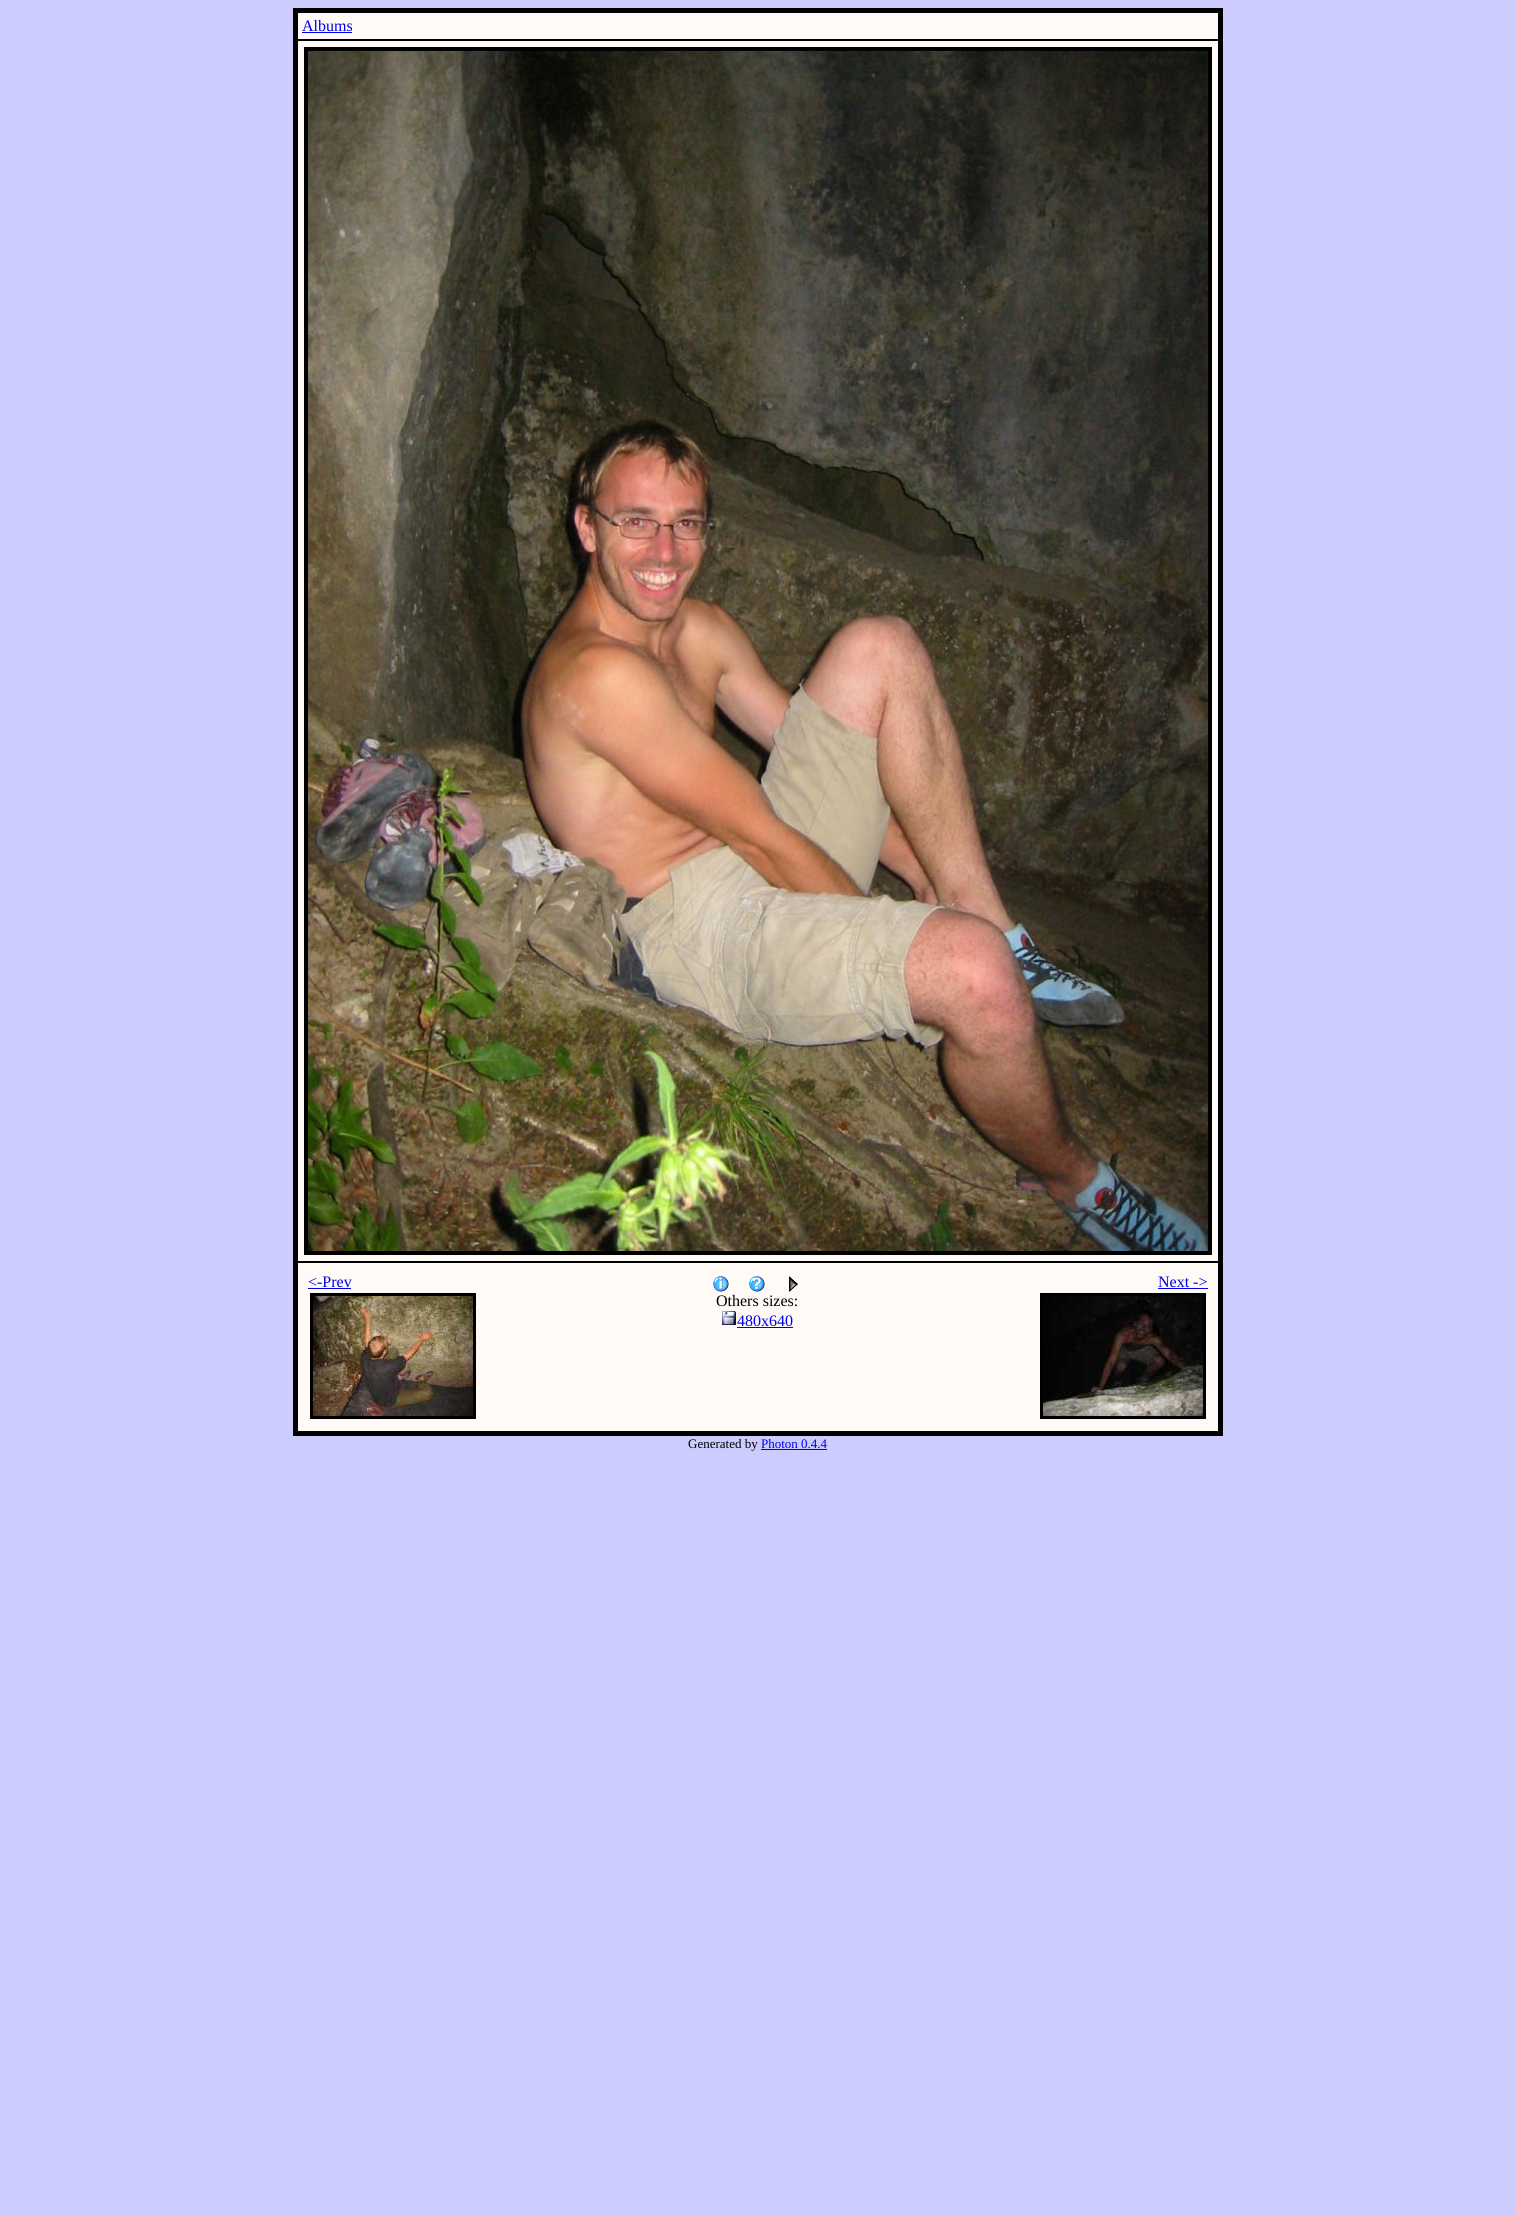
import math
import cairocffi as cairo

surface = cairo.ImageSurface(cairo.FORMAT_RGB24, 1515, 2215)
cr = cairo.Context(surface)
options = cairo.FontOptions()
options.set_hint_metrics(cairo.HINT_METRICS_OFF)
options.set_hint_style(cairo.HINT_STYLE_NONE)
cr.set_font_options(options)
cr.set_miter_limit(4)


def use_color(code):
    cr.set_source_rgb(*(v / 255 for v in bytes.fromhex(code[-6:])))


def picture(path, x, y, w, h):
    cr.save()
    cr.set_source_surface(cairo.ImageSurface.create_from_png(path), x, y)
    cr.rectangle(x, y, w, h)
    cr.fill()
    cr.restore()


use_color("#ccccff")
cr.paint()
use_color("#000000")
cr.rectangle(293, 8, 930, 1428)
cr.fill()
use_color("#fffaf5")
cr.rectangle(298, 13, 920, 26)
cr.fill()
cr.select_font_face("Liberation Serif")
cr.set_font_size(16)
use_color("#0000ee")
cr.move_to(302, 31)
cr.show_text("Albums")
cr.rectangle(302, 32, 50, 1)
cr.fill()
use_color("#fffaf5")
cr.rectangle(298, 41, 920, 1220)
cr.fill()
use_color("#000000")
cr.rectangle(304, 47, 908, 1208)
cr.fill()
picture("img1.png", 308, 51, 900, 1200)
use_color("#fffaf5")
cr.rectangle(298, 1263, 920, 168)
cr.fill()
use_color("#0000ee")
cr.move_to(308, 1287)
cr.show_text("<-Prev")
cr.rectangle(308, 1288, 43, 1)
cr.fill()
use_color("#000000")
cr.rectangle(310, 1293, 166, 126)
cr.fill()
picture("img2.png", 313, 1296, 160, 120)
use_color("#0000ee")
cr.move_to(1158, 1287)
cr.show_text("Next ->")
cr.rectangle(1158, 1288, 50, 1)
cr.fill()
use_color("#000000")
cr.rectangle(1040, 1293, 166, 126)
cr.fill()
picture("img3.png", 1043, 1296, 160, 120)
picture("img4.png", 713, 1276, 16, 16)
picture("img5.png", 749, 1276, 16, 16)
picture("img6.png", 789, 1276, 9, 16)
cr.move_to(716, 1306)
cr.show_text("Others sizes:")
picture("img7.png", 722, 1311, 14, 14)
use_color("#0000ee")
cr.move_to(737, 1326)
cr.show_text("480x640")
cr.rectangle(737, 1327, 56, 1)
cr.fill()
cr.set_font_size(13)
use_color("#000000")
cr.move_to(688, 1448)
cr.show_text("Generated by")
use_color("#0000ee")
cr.move_to(761, 1448)
cr.show_text("Photon 0.4.4")
cr.rectangle(761, 1449, 66, 1)
cr.fill()
surface.write_to_png("result.png")
